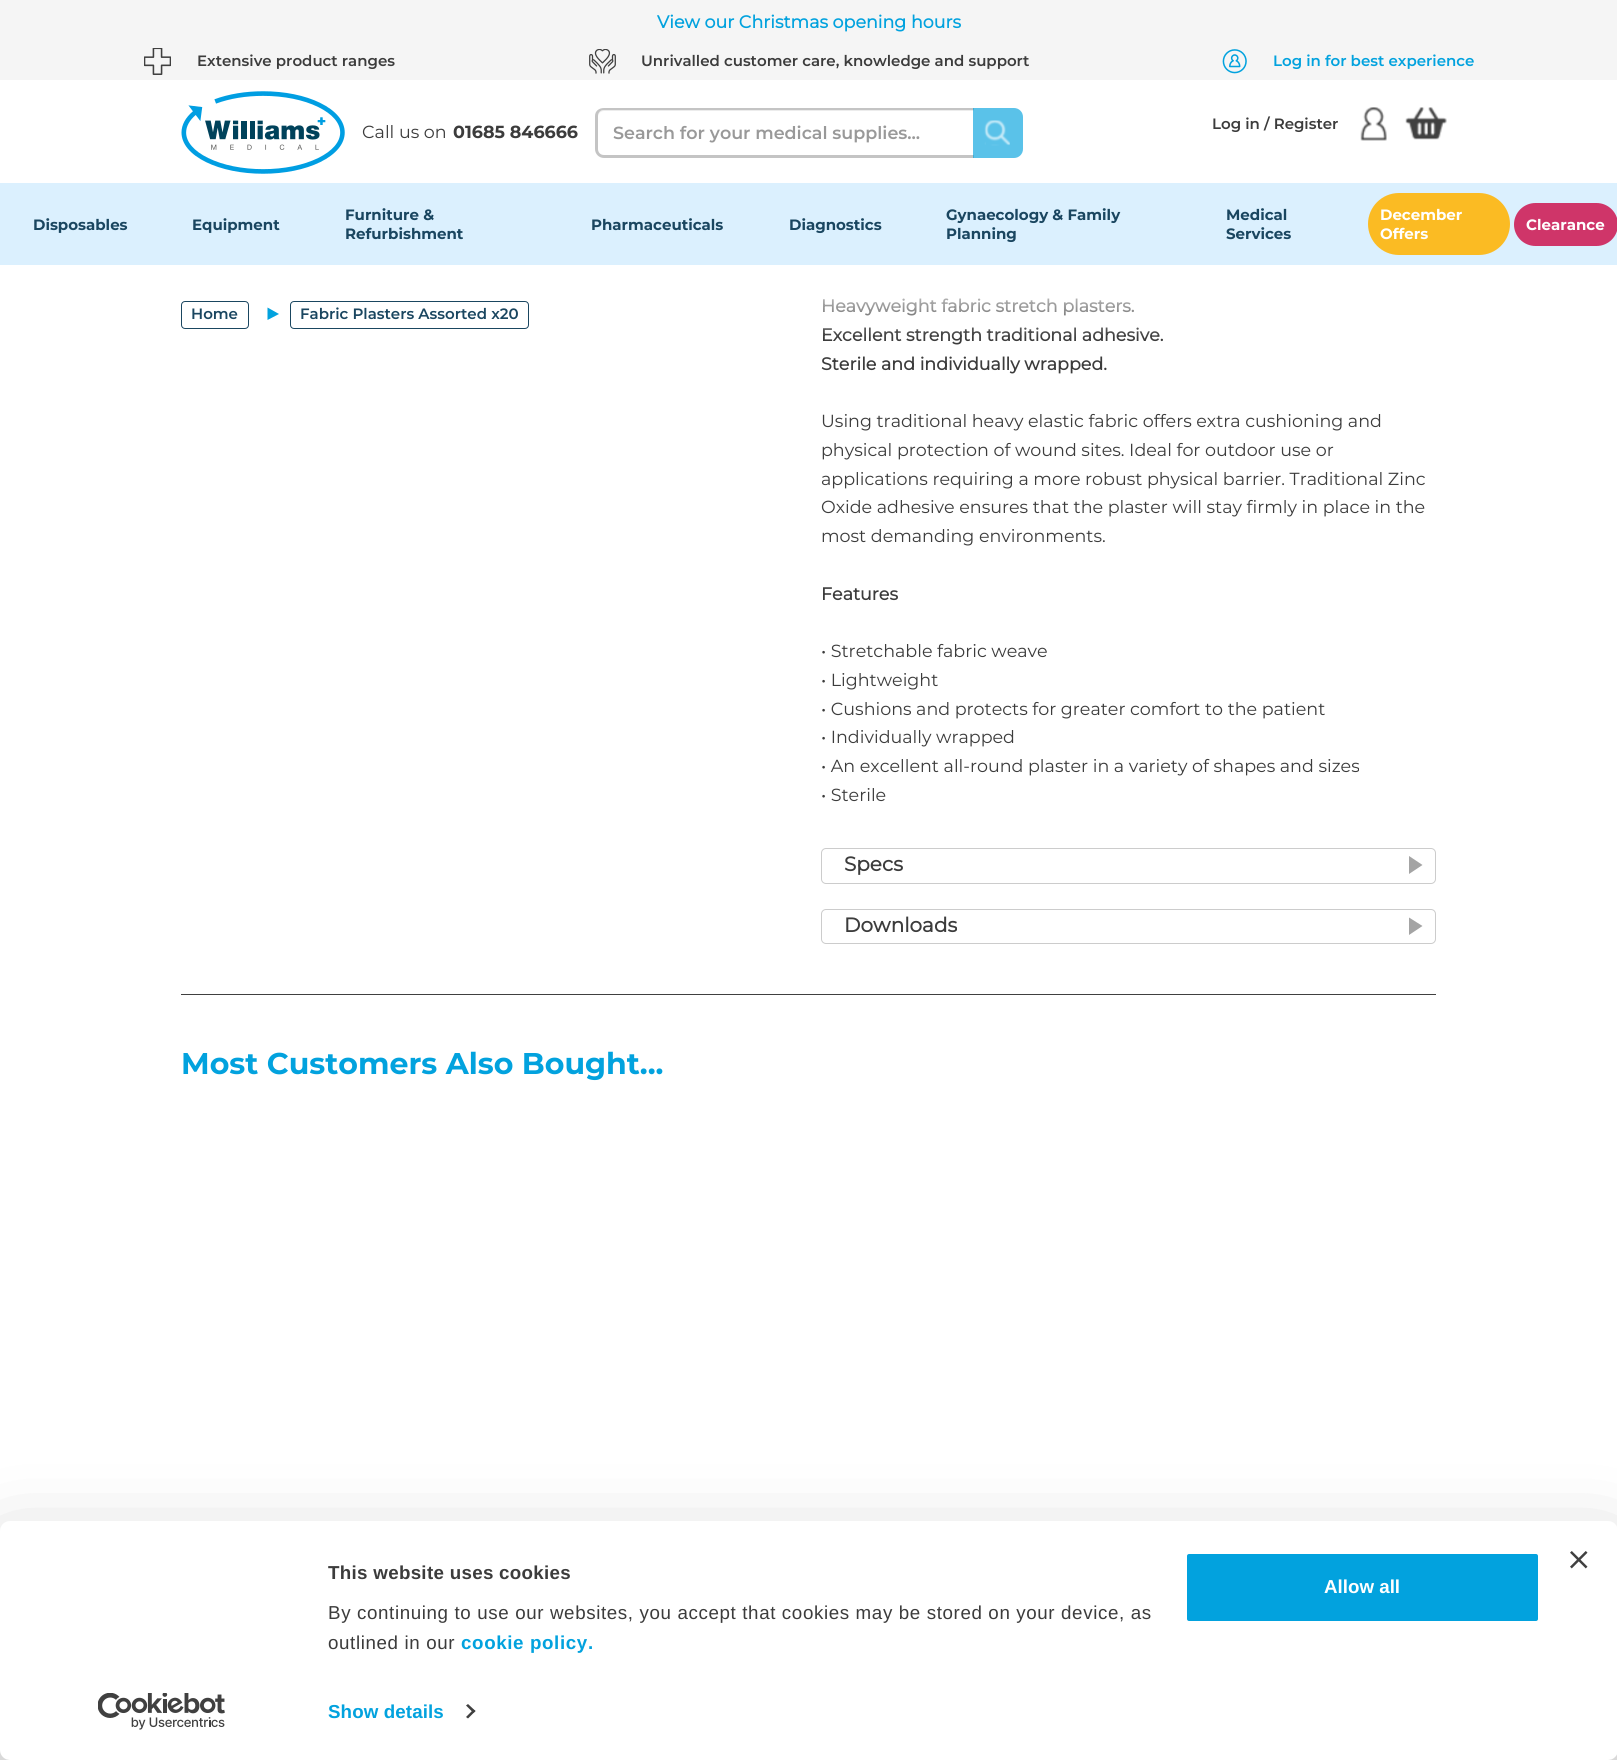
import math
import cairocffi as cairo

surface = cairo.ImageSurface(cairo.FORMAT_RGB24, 1617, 1760)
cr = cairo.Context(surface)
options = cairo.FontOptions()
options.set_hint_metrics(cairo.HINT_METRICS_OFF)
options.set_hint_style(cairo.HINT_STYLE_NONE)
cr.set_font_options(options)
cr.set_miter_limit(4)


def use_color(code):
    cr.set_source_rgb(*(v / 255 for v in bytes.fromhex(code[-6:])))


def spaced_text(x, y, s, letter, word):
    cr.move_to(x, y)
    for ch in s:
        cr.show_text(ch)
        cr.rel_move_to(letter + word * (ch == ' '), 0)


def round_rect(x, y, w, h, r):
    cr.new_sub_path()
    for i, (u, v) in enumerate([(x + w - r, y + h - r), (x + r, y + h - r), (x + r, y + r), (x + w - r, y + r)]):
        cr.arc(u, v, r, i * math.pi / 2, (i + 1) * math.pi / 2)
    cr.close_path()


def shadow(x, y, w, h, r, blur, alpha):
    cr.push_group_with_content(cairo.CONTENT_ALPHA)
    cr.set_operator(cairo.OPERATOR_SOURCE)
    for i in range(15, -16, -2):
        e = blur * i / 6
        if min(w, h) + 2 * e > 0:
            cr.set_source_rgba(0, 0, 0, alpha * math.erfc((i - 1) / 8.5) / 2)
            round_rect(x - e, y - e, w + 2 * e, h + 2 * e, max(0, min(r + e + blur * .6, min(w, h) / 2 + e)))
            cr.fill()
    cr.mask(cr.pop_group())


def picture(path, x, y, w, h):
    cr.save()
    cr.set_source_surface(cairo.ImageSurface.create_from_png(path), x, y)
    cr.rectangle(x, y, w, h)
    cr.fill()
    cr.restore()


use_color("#ffffff")
cr.paint()
use_color("#f5f5f5")
cr.rectangle(0, 0, 1617, 80)
cr.fill()
cr.select_font_face("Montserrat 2", cairo.FONT_SLANT_NORMAL, cairo.FONT_WEIGHT_BOLD)
cr.set_font_size(17.5)
use_color("#02a2de")
cr.move_to(657, 28)
cr.show_text("View our Christmas opening hours")
picture("img1.png", 144, 48, 27, 27)
cr.select_font_face("Montserrat SemiBold")
cr.set_font_size(15)
use_color("#3c3c3c")
cr.move_to(197, 66)
cr.show_text("Extensive product ranges")
picture("img2.png", 589, 49, 27, 25)
cr.move_to(641, 66)
cr.show_text("Unrivalled customer care, knowledge and support")
picture("img3.png", 1222, 49, 25, 25)
use_color("#02a2de")
cr.move_to(1273, 66)
cr.show_text("Log in for best experience")
picture("img4.png", 181, 91, 164, 83)
cr.select_font_face("Montserrat")
cr.set_font_size(17.5)
use_color("#3c3c3c")
cr.move_to(362, 138)
cr.show_text("Call us on")
cr.select_font_face("Montserrat", cairo.FONT_SLANT_NORMAL, cairo.FONT_WEIGHT_BOLD)
cr.move_to(453, 138)
cr.show_text("01685 846666")
use_color("#ececec")
cr.new_path()
cr.move_to(604, 111)
cr.line_to(974, 111)
cr.line_to(974, 110)
cr.line_to(604, 110)
cr.curve_to(599, 110, 598, 114, 598, 118)
cr.curve_to(598, 114, 600, 111, 604, 111)
cr.close_path()
cr.fill()
use_color("#c4c4c4")
cr.set_fill_rule(cairo.FILL_RULE_EVEN_ODD)
cr.new_path()
cr.move_to(604, 108)
cr.line_to(974, 108)
cr.line_to(974, 158)
cr.line_to(604, 158)
cr.curve_to(599, 158, 595, 154, 595, 149)
cr.line_to(595, 116)
cr.curve_to(595, 111, 599, 108, 604, 108)
cr.close_path()
cr.move_to(604, 110)
cr.line_to(974, 110)
cr.line_to(974, 155)
cr.line_to(604, 155)
cr.curve_to(600, 155, 598, 152, 598, 149)
cr.line_to(598, 116)
cr.curve_to(598, 113, 600, 110, 604, 110)
cr.close_path()
cr.fill()
cr.select_font_face("Montserrat SemiBold")
use_color("#999999")
cr.move_to(613, 139)
cr.show_text("Search for your medical supplies...")
cr.set_source_rgba(0.008, 0.635, 0.871, 0.65)
cr.new_path()
cr.move_to(973, 108)
cr.line_to(1014, 108)
cr.curve_to(1019, 108, 1023, 112, 1023, 117)
cr.line_to(1023, 149)
cr.curve_to(1023, 154, 1019, 158, 1014, 158)
cr.line_to(973, 158)
cr.close_path()
cr.fill()
picture("img5.png", 984, 120, 26, 26)
cr.set_font_size(15)
use_color("#3c3c3c")
cr.move_to(1212, 129)
cr.show_text("Log in / Register")
picture("img6.png", 1360, 107, 27, 34)
picture("img7.png", 1405, 107, 42, 33)
use_color("#dbf0fe")
cr.rectangle(0, 183, 1617, 82)
cr.fill()
cr.select_font_face("Montserrat", cairo.FONT_SLANT_NORMAL, cairo.FONT_WEIGHT_BOLD)
use_color("#1a4660")
cr.move_to(33, 230)
cr.show_text("Disposables")
cr.move_to(192, 230)
cr.show_text("Equipment")
cr.move_to(345, 220)
cr.show_text("Furniture &")
cr.move_to(345, 239)
cr.show_text("Refurbishment")
cr.move_to(591, 230)
cr.show_text("Pharmaceuticals")
cr.move_to(789, 230)
cr.show_text("Diagnostics")
cr.move_to(946, 220)
cr.show_text("Gynaecology & Family")
cr.move_to(946, 239)
cr.show_text("Planning")
cr.move_to(1226, 220)
cr.show_text("Medical")
cr.move_to(1226, 239)
cr.show_text("Services")
use_color("#fbbb23")
round_rect(1368, 193, 142, 62, 31)
cr.fill()
use_color("#ffffff")
cr.move_to(1380, 220)
cr.show_text("December")
cr.move_to(1380, 239)
cr.show_text("Offers")
use_color("#cf3569")
round_rect(1514, 203, 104, 43, 21.5)
cr.fill()
use_color("#ffffff")
cr.move_to(1526, 230)
cr.show_text("Clearance")
cr.select_font_face("Montserrat 2", cairo.FONT_SLANT_NORMAL, cairo.FONT_WEIGHT_BOLD)
cr.set_font_size(17.5)
use_color("#3c3c3c")
cr.move_to(821, 312)
cr.show_text("Heavyweight fabric stretch plasters.")
cr.move_to(821, 341)
cr.show_text("Excellent strength traditional adhesive.")
gradient = cairo.LinearGradient(809, 265, 809, 346)
gradient.add_color_stop_rgba(0.1, 1, 1, 1, 1)
gradient.add_color_stop_rgba(0.9, 1, 1, 1, 0)
cr.set_source(gradient)
cr.rectangle(823, 298, 336, 39)
cr.fill()
round_rect(181.5, 301.5, 67, 27, 3.5)
use_color("#1a4660")
cr.set_line_width(1)
cr.stroke()
cr.select_font_face("Montserrat SemiBold")
cr.set_font_size(15)
cr.move_to(191, 319)
cr.show_text("Home")
use_color("#02a2de")
cr.set_fill_rule(cairo.FILL_RULE_WINDING)
cr.new_path()
cr.move_to(267.5, 320)
cr.line_to(267.5, 307.5)
cr.line_to(279, 314)
cr.close_path()
cr.fill()
round_rect(290.5, 301.5, 238, 27, 3.5)
use_color("#1a4660")
cr.stroke()
cr.move_to(300, 319)
cr.show_text("Fabric Plasters Assorted x20")
cr.select_font_face("Montserrat 2", cairo.FONT_SLANT_NORMAL, cairo.FONT_WEIGHT_BOLD)
cr.set_font_size(17.5)
use_color("#3c3c3c")
cr.move_to(821, 370)
cr.show_text("Sterile and individually wrapped.")
cr.select_font_face("Montserrat")
cr.move_to(821, 427)
cr.show_text("Using traditional heavy elastic fabric offers extra cushioning and")
cr.move_to(821, 456)
cr.show_text("physical protection of wound sites. Ideal for outdoor use or")
cr.move_to(821, 485)
cr.show_text("applications requiring a more robust physical barrier. Traditional Zinc")
cr.move_to(821, 513)
cr.show_text("Oxide adhesive ensures that the plaster will stay firmly in place in the")
cr.move_to(821, 542)
cr.show_text("most demanding environments.")
cr.select_font_face("Montserrat 2", cairo.FONT_SLANT_NORMAL, cairo.FONT_WEIGHT_BOLD)
cr.move_to(821, 600)
cr.show_text("Features")
cr.select_font_face("Montserrat")
cr.move_to(821, 657)
cr.show_text("• Stretchable fabric weave")
cr.move_to(821, 686)
cr.show_text("• Lightweight")
cr.move_to(821, 715)
cr.show_text("• Cushions and protects for greater comfort to the patient")
cr.move_to(821, 743)
cr.show_text("• Individually wrapped")
cr.move_to(821, 772)
cr.show_text("• An excellent all-round plaster in a variety of shapes and sizes")
cr.move_to(821, 801)
cr.show_text("• Sterile")
round_rect(821.5, 848.5, 614, 35, 4.5)
use_color("#cccccc")
cr.stroke()
cr.select_font_face("Montserrat 2", cairo.FONT_SLANT_NORMAL, cairo.FONT_WEIGHT_BOLD)
cr.set_font_size(20)
use_color("#3c3c3c")
cr.move_to(844, 871)
cr.show_text("Specs")
use_color("#a4a4a4")
cr.new_path()
cr.move_to(1409, 874)
cr.line_to(1409, 856)
cr.line_to(1422.5, 865)
cr.close_path()
cr.fill()
round_rect(821.5, 909.5, 614, 34, 4.5)
use_color("#cccccc")
cr.stroke()
use_color("#3c3c3c")
cr.move_to(844, 932)
cr.show_text("Downloads")
use_color("#a4a4a4")
cr.new_path()
cr.move_to(1409, 935)
cr.line_to(1409, 917.5)
cr.line_to(1422.5, 926)
cr.close_path()
cr.fill()
use_color("#404040")
cr.rectangle(181, 994, 1255, 1)
cr.fill()
cr.select_font_face("Montserrat", cairo.FONT_SLANT_NORMAL, cairo.FONT_WEIGHT_BOLD)
cr.set_font_size(30)
use_color("#02a2de")
cr.move_to(181, 1074)
cr.show_text("Most Customers Also Bought...")
use_color("#000000")
shadow(0, 1559, 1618, 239, 10, 44, 0.3)
use_color("#ffffff")
round_rect(0, 1521, 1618, 239, 10)
cr.fill()
picture("img8.png", 1570, 1551, 18, 18)
cr.select_font_face("Liberation Sans", cairo.FONT_SLANT_NORMAL, cairo.FONT_WEIGHT_BOLD)
cr.set_font_size(18.75)
use_color("#3c3c3c")
spaced_text(328, 1579, "This website uses cookies", 0.3, 0)
cr.select_font_face("Liberation Sans")
spaced_text(328, 1619, "By continuing to use our websites, you accept that cookies may be stored on your device, as", 0.62, 0)
spaced_text(328, 1649, "outlined in our", 0.62, 0)
cr.select_font_face("Liberation Sans", cairo.FONT_SLANT_NORMAL, cairo.FONT_WEIGHT_BOLD)
use_color("#02a2de")
spaced_text(461, 1649, "cookie policy.", 0.62, 0)
spaced_text(328, 1718, "Show details", 0.1, 0)
use_color("#404040")
cr.new_path()
cr.move_to(468, 1704)
cr.line_to(475.5, 1711)
cr.line_to(473.5, 1713)
cr.line_to(466, 1705.5)
cr.close_path()
cr.fill()
cr.new_path()
cr.move_to(473.5, 1709.5)
cr.line_to(475.5, 1711)
cr.line_to(468, 1718.5)
cr.line_to(466, 1717)
cr.close_path()
cr.fill()
use_color("#02a2de")
round_rect(1185.5, 1552.5, 354, 70, 3.5)
cr.fill_preserve()
use_color("#ffffff")
cr.set_line_width(3)
cr.stroke()
cr.move_to(1324, 1593)
cr.show_text("Allow all")
picture("img9.png", 98, 1693, 127, 37)
surface.write_to_png("result.png")
